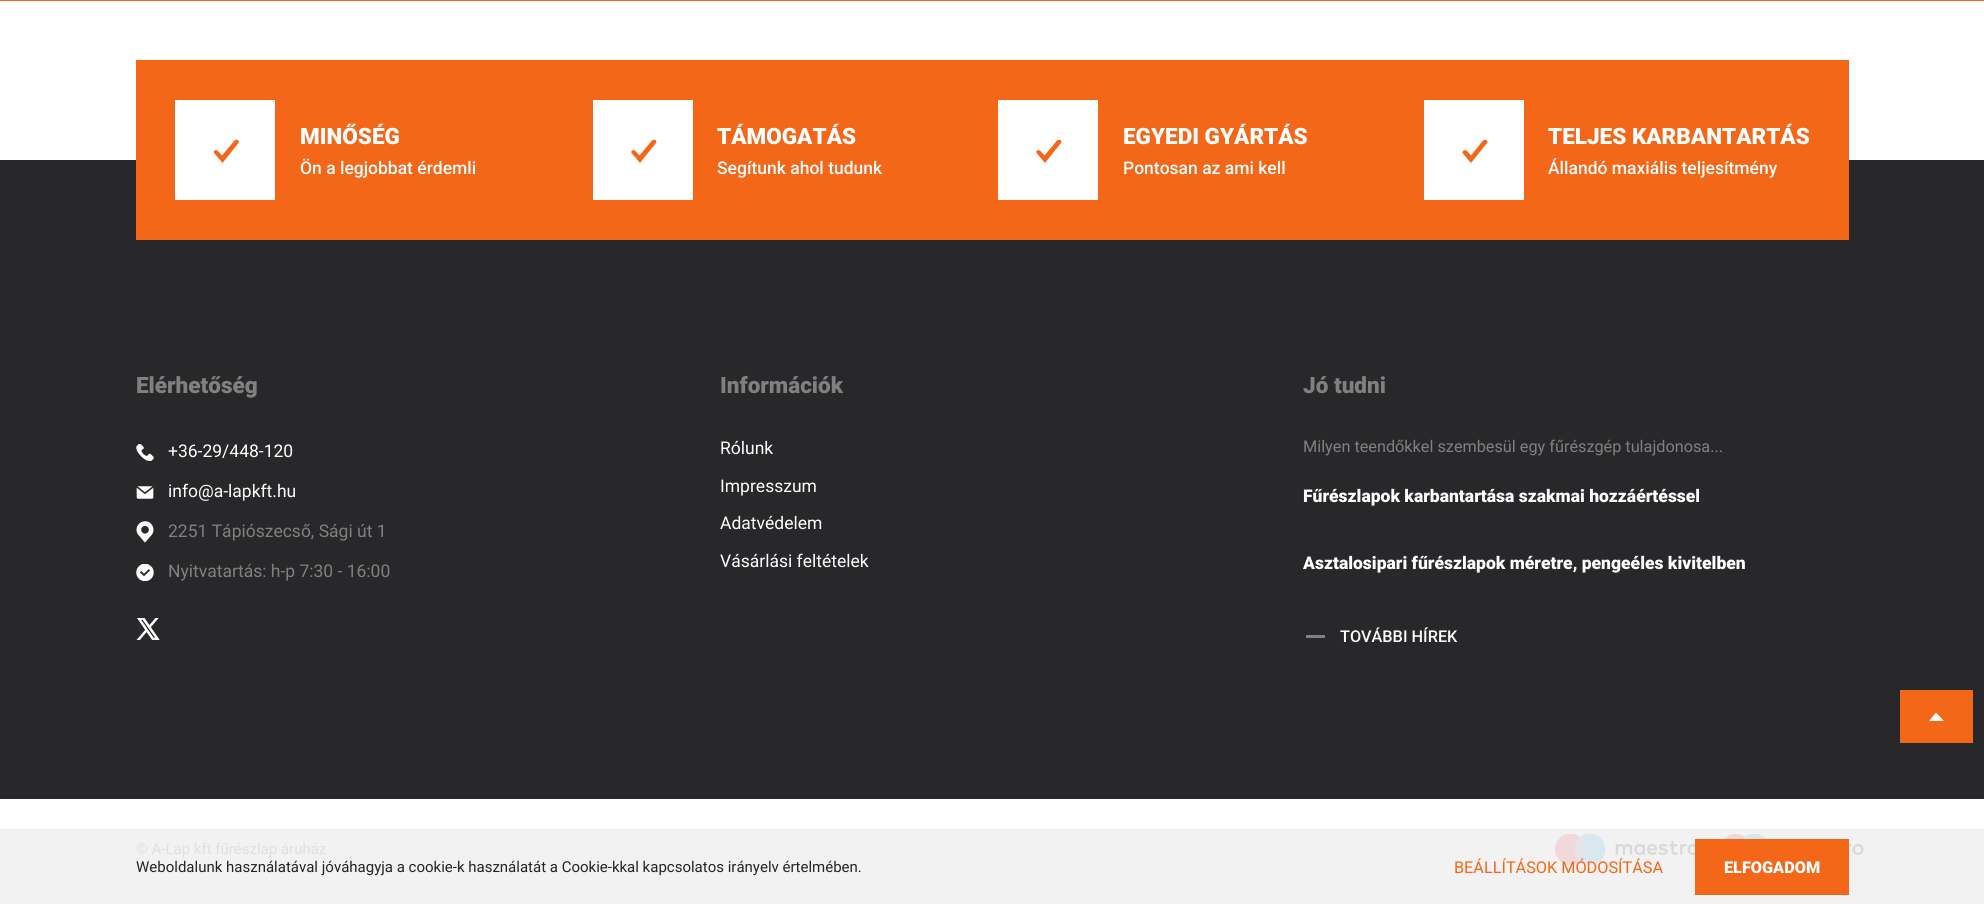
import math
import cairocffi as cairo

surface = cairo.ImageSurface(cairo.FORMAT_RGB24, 1984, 904)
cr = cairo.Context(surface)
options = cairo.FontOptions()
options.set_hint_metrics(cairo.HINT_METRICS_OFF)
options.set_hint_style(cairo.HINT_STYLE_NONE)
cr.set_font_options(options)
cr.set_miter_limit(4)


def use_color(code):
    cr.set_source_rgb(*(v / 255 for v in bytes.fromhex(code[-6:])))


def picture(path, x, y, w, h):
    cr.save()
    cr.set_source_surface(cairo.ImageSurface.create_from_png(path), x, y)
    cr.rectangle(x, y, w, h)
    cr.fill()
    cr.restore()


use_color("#ffffff")
cr.paint()
use_color("#f2f2f2")
cr.rectangle(0, 829, 1984, 75)
cr.fill()
use_color("#f46618")
cr.rectangle(0, 0, 1984, 1)
cr.fill()
use_color("#282729")
cr.rectangle(0, 160, 1984, 639)
cr.fill()
use_color("#f46618")
cr.rectangle(136, 60, 1713, 180)
cr.fill()
use_color("#ffffff")
cr.rectangle(175, 100, 100, 100)
cr.fill()
use_color("#f46618")
cr.new_path()
cr.move_to(238, 140)
cr.curve_to(236.5, 139.5, 235, 140, 234.5, 140.5)
cr.line_to(222, 155.5)
cr.line_to(218, 151)
cr.curve_to(217, 150, 215.5, 150, 214.5, 150.5)
cr.curve_to(213.5, 151.5, 213.5, 153, 214.5, 153.5)
cr.line_to(222.5, 163)
cr.line_to(238.5, 143)
cr.curve_to(239, 142.5, 239, 141, 238, 140)
cr.close_path()
cr.fill()
cr.select_font_face("Roboto Black")
cr.set_font_size(22.5)
use_color("#ffffff")
cr.move_to(300, 144)
cr.show_text("MINŐSÉG")
cr.select_font_face("Roboto Medium")
cr.set_font_size(17.5)
cr.move_to(300, 174)
cr.show_text("Ön a legjobbat érdemli")
cr.rectangle(593, 100, 100, 100)
cr.fill()
use_color("#f46618")
cr.new_path()
cr.move_to(655.5, 140)
cr.curve_to(654, 139.5, 652.5, 140, 652, 140.5)
cr.line_to(639.5, 155.5)
cr.line_to(635.5, 151)
cr.curve_to(634.5, 150, 633, 150, 632, 150.5)
cr.curve_to(631, 151.5, 631, 153, 632, 153.5)
cr.line_to(640, 163)
cr.line_to(656, 143)
cr.curve_to(656.5, 142.5, 656.5, 141, 655.5, 140)
cr.close_path()
cr.fill()
cr.select_font_face("Roboto Black")
cr.set_font_size(22.5)
use_color("#ffffff")
cr.move_to(717, 144)
cr.show_text("TÁMOGATÁS")
cr.select_font_face("Roboto Medium")
cr.set_font_size(17.5)
cr.move_to(717, 174)
cr.show_text("Segítunk ahol tudunk")
cr.rectangle(998, 100, 100, 100)
cr.fill()
use_color("#f46618")
cr.new_path()
cr.move_to(1060.5, 140)
cr.curve_to(1059, 139.5, 1057.5, 140, 1057, 140.5)
cr.line_to(1044.5, 155.5)
cr.line_to(1040.5, 151)
cr.curve_to(1039.5, 150, 1038, 150, 1037, 150.5)
cr.curve_to(1036, 151.5, 1036, 153, 1037, 153.5)
cr.line_to(1045, 163)
cr.line_to(1061, 143)
cr.curve_to(1061.5, 142.5, 1061.5, 141, 1060.5, 140)
cr.close_path()
cr.fill()
cr.select_font_face("Roboto Black")
cr.set_font_size(22.5)
use_color("#ffffff")
cr.move_to(1123, 144)
cr.show_text("EGYEDI GYÁRTÁS")
cr.select_font_face("Roboto Medium")
cr.set_font_size(17.5)
cr.move_to(1123, 174)
cr.show_text("Pontosan az ami kell")
cr.rectangle(1424, 100, 100, 100)
cr.fill()
use_color("#f46618")
cr.new_path()
cr.move_to(1486.5, 140)
cr.curve_to(1485.5, 139.5, 1484, 140, 1483, 140.5)
cr.line_to(1471, 155.5)
cr.line_to(1467, 151)
cr.curve_to(1466, 150, 1464.5, 150, 1463.5, 150.5)
cr.curve_to(1462.5, 151.5, 1462, 153, 1463, 153.5)
cr.line_to(1471, 163)
cr.line_to(1487, 143)
cr.curve_to(1488, 142.5, 1487.5, 141, 1486.5, 140)
cr.close_path()
cr.fill()
cr.select_font_face("Roboto Black")
cr.set_font_size(22.5)
use_color("#ffffff")
cr.move_to(1548, 144)
cr.show_text("TELJES KARBANTARTÁS")
cr.select_font_face("Roboto Medium")
cr.set_font_size(17.5)
cr.move_to(1548, 174)
cr.show_text("Állandó maxiális teljesítmény")
cr.select_font_face("Roboto Black")
cr.set_font_size(22.5)
use_color("#808080")
cr.move_to(136, 393)
cr.show_text("Elérhetőség")
picture("img1.png", 136, 444, 18, 17)
cr.select_font_face("Roboto")
cr.set_font_size(17.5)
use_color("#ffffff")
cr.move_to(168, 457)
cr.show_text("+36-29/448-120")
picture("img2.png", 136, 486, 18, 13)
cr.move_to(168, 497)
cr.show_text("info@a-lapkft.hu")
picture("img3.png", 136, 521, 18, 22)
use_color("#808080")
cr.move_to(168, 537)
cr.show_text("2251 Tápiószecső, Sági út 1")
picture("img4.png", 136, 564, 18, 17)
cr.move_to(168, 577)
cr.show_text("Nyitvatartás: h-p 7:30 - 16:00")
picture("img5.png", 136, 618, 24, 22)
cr.select_font_face("Roboto Black")
cr.set_font_size(22.5)
cr.move_to(720, 393)
cr.show_text("Információk")
cr.select_font_face("Roboto")
cr.set_font_size(17.5)
use_color("#ffffff")
cr.move_to(720, 454)
cr.show_text("Rólunk")
cr.move_to(720, 492)
cr.show_text("Impresszum")
cr.move_to(720, 529)
cr.show_text("Adatvédelem")
cr.move_to(720, 567)
cr.show_text("Vásárlási feltételek")
cr.select_font_face("Roboto Black")
cr.set_font_size(22.5)
use_color("#808080")
cr.move_to(1303, 393)
cr.show_text("Jó tudni")
cr.select_font_face("Roboto")
cr.set_font_size(16.25)
cr.move_to(1303, 452)
cr.show_text("Milyen teendőkkel szembesül egy fűrészgép tulajdonosa...")
cr.select_font_face("Roboto Black")
cr.set_font_size(17.5)
use_color("#ffffff")
cr.move_to(1303, 502)
cr.show_text("Fűrészlapok karbantartása szakmai hozzáértéssel")
cr.move_to(1303, 569)
cr.show_text("Asztalosipari fűrészlapok méretre, pengeéles kivitelben")
use_color("#808080")
cr.rectangle(1306, 635, 19, 3)
cr.fill()
cr.select_font_face("Roboto Medium")
cr.set_font_size(16.25)
use_color("#ffffff")
cr.move_to(1340, 642)
cr.show_text("TOVÁBBI HÍREK")
use_color("#f46618")
cr.rectangle(1900, 690, 73, 53)
cr.fill()
use_color("#ffffff")
cr.new_path()
cr.move_to(1944, 721)
cr.line_to(1936, 712.5)
cr.line_to(1929, 721)
cr.close_path()
cr.fill()
cr.select_font_face("Roboto")
cr.set_font_size(15)
use_color("#dfe0e1")
cr.move_to(136, 854)
cr.show_text("© A-Lap kft fűrészlap áruház")
picture("img6.png", 1555, 834, 140, 31)
picture("img7.png", 1724, 834, 142, 21)
use_color("#212529")
cr.move_to(136, 872)
cr.show_text("Weboldalunk használatával jóváhagyja a cookie-k használatát a Cookie-kkal kapcsolatos irányelv értelmében.")
cr.set_font_size(16.25)
use_color("#f46618")
cr.move_to(1454, 873)
cr.show_text("BEÁLLÍTÁSOK MÓDOSÍTÁSA")
cr.rectangle(1695, 839, 154, 56)
cr.fill()
cr.select_font_face("Roboto Black")
use_color("#ffffff")
cr.move_to(1724, 873)
cr.show_text("ELFOGADOM")
surface.write_to_png("result.png")
